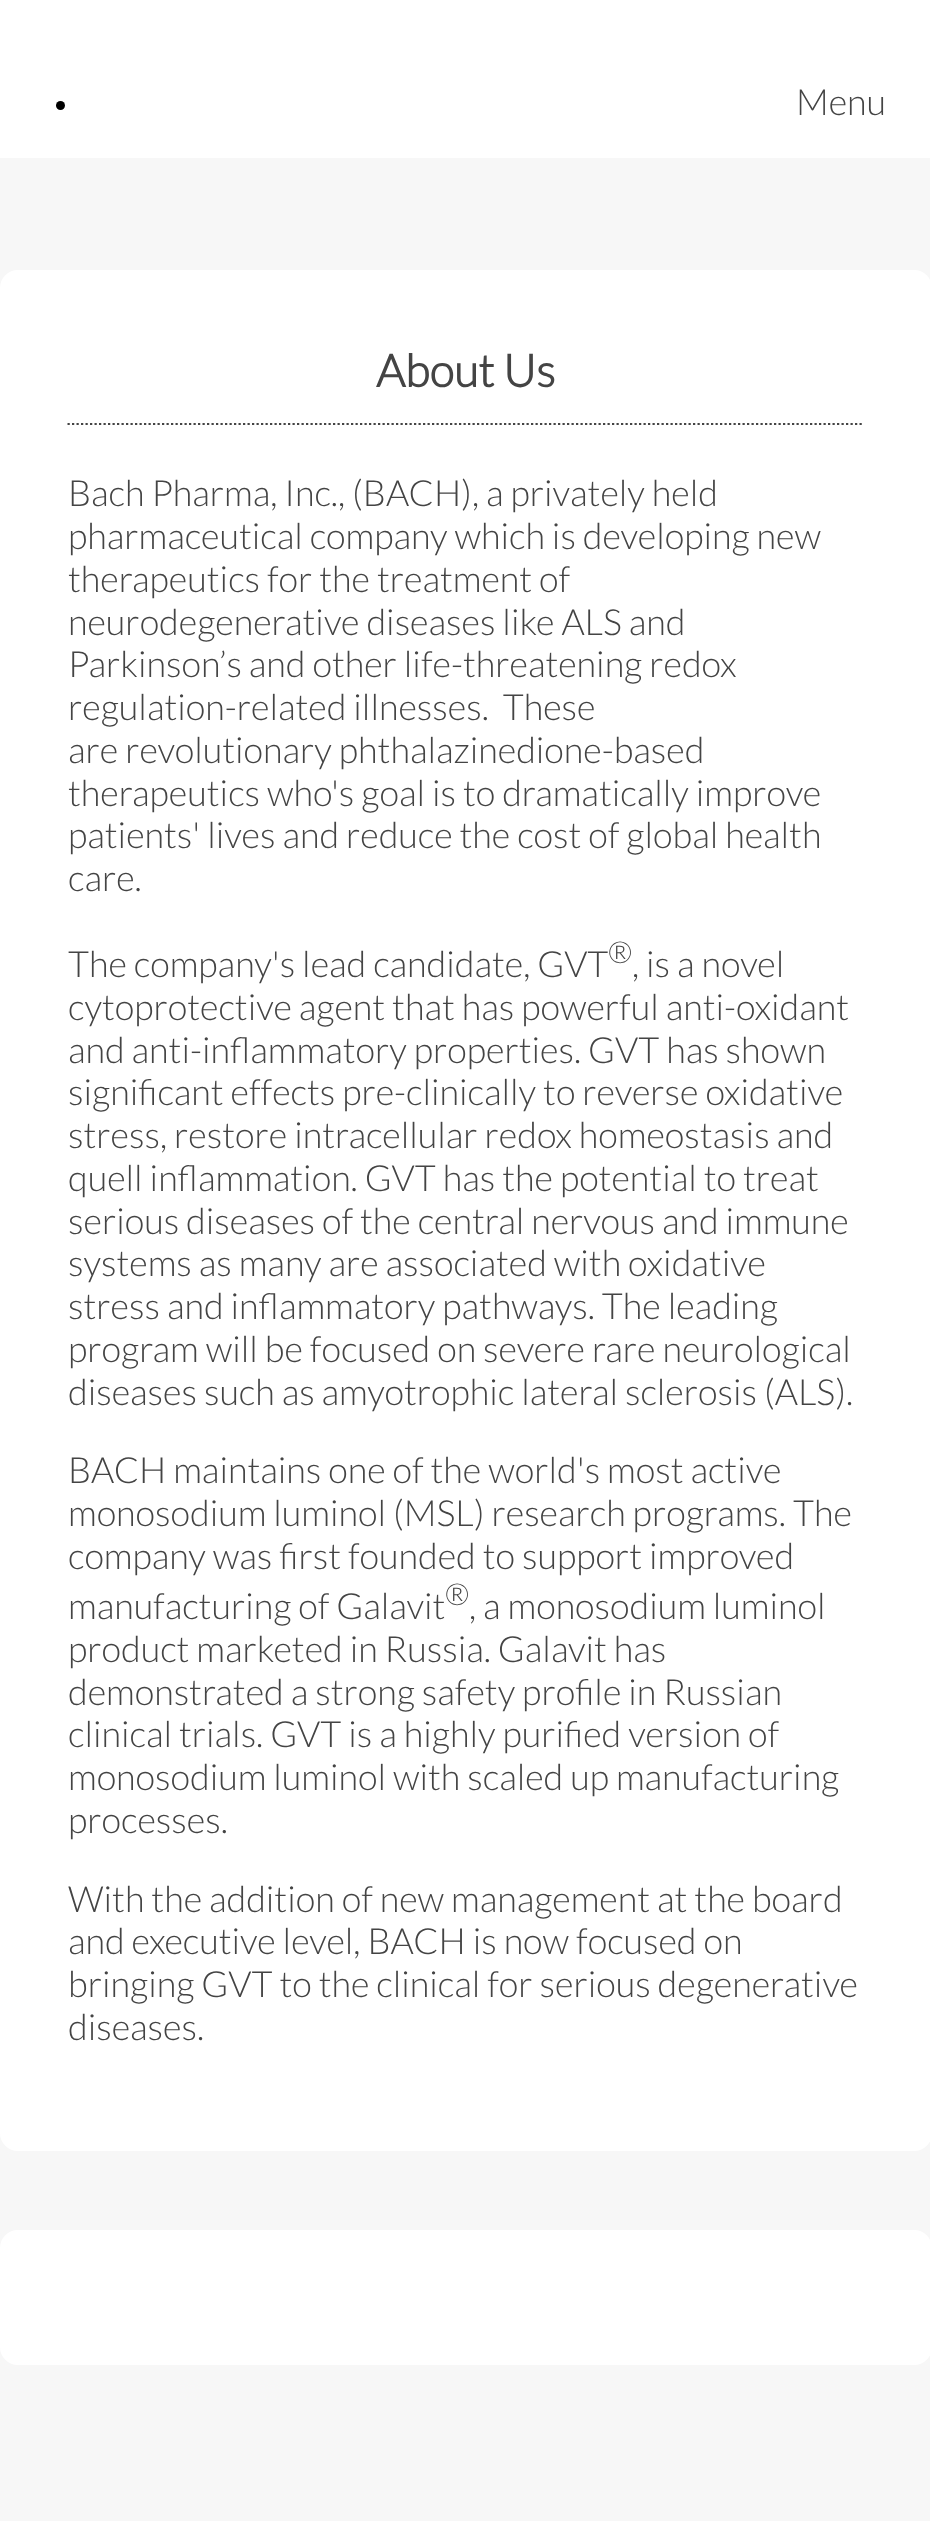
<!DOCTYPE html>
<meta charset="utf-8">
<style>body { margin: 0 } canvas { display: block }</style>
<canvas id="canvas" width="930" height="2521"></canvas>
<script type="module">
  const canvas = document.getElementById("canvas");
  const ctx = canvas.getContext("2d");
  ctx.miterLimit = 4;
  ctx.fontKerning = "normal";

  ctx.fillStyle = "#ffffff";
  ctx.fillRect(0, 0, 930, 2521);
  ctx.fillStyle = "#000000";
  ctx.beginPath();
  ctx.arc(60.5, 105.5, 4.5, 0, Math.PI * 2);
  ctx.fill();
  ctx.font = "300 36px Lato";
  ctx.fillStyle = "#444444";
  ctx.fillText("Menu", 796, 115);
  ctx.fillStyle = "#f7f7f7";
  ctx.fillRect(0, 158, 930, 2363);
  ctx.fillStyle = "#ffffff";
  ctx.beginPath();
  ctx.roundRect(0, 270, 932, 1881, 18);
  ctx.fill();
  ctx.beginPath();
  ctx.moveTo(67.5, 424);
  ctx.lineTo(864, 424);
  ctx.strokeStyle = "#444444";
  ctx.lineWidth = 2.2;
  ctx.setLineDash([2.25, 2.25]);
  ctx.stroke();
  ctx.font = "bold 45px Lato";
  ctx.fillStyle = "#444444";
  ctx.fillText("About Us", 376, 387);
  ctx.font = "300 36px Lato";
  ctx.fillText("Bach Pharma, Inc., (BACH), a privately held", 68, 506);
  ctx.fillText("pharmaceutical company which is developing new", 68, 549);
  ctx.fillText("therapeutics for the treatment of", 68, 592);
  ctx.fillText("neurodegenerative diseases like ALS and", 68, 635);
  ctx.fillText("Parkinson’s and other life-threatening redox", 68, 677);
  ctx.fillText("regulation-related illnesses.  These", 68, 720);
  ctx.fillText("are revolutionary phthalazinedione-based", 68, 763);
  ctx.fillText("therapeutics who's goal is to dramatically improve", 68, 806);
  ctx.fillText("patients' lives and reduce the cost of global health", 68, 848);
  ctx.fillText("care.", 68, 891);
  ctx.fillText("The company's lead candidate, GVT", 68, 977);
  ctx.font = "300 30px Lato";
  ctx.fillText("®", 608, 963);
  ctx.font = "300 36px Lato";
  ctx.fillText(", is a novel", 632, 977);
  ctx.fillText("cytoprotective agent that has powerful anti-oxidant", 68, 1020);
  ctx.fillText("and anti-inflammatory properties. GVT has shown", 68, 1063);
  ctx.fillText("significant effects pre-clinically to reverse oxidative", 68, 1105);
  ctx.fillText("stress, restore intracellular redox homeostasis and", 68, 1148);
  ctx.fillText("quell inflammation. GVT has the potential to treat", 68, 1191);
  ctx.fillText("serious diseases of the central nervous and immune", 68, 1234);
  ctx.fillText("systems as many are associated with oxidative", 68, 1276);
  ctx.fillText("stress and inflammatory pathways. The leading", 68, 1319);
  ctx.fillText("program will be focused on severe rare neurological", 68, 1362);
  ctx.fillText("diseases such as amyotrophic lateral sclerosis (ALS).", 68, 1405);
  ctx.fillText("BACH maintains one of the world's most active", 68, 1483);
  ctx.fillText("monosodium luminol (MSL) research programs. The", 68, 1526);
  ctx.fillText("company was first founded to support improved", 68, 1569);
  ctx.fillText("manufacturing of Galavit", 68, 1619);
  ctx.font = "300 30px Lato";
  ctx.fillText("®", 445, 1605);
  ctx.font = "300 36px Lato";
  ctx.fillText(", a monosodium luminol", 469, 1619);
  ctx.fillText("product marketed in Russia. Galavit has", 68, 1662);
  ctx.fillText("demonstrated a strong safety profile in Russian", 68, 1705);
  ctx.fillText("clinical trials. GVT is a highly purified version of", 68, 1747);
  ctx.fillText("monosodium luminol with scaled up manufacturing", 68, 1790);
  ctx.fillText("processes.", 68, 1833);
  ctx.fillText("With the addition of new management at the board", 68, 1912);
  ctx.fillText("and executive level, BACH is now focused on", 68, 1954);
  ctx.fillText("bringing GVT to the clinical for serious degenerative", 68, 1997);
  ctx.fillText("diseases.", 68, 2040);
  ctx.fillStyle = "#ffffff";
  ctx.beginPath();
  ctx.roundRect(0, 2230, 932, 135, 18);
  ctx.fill();
</script>
